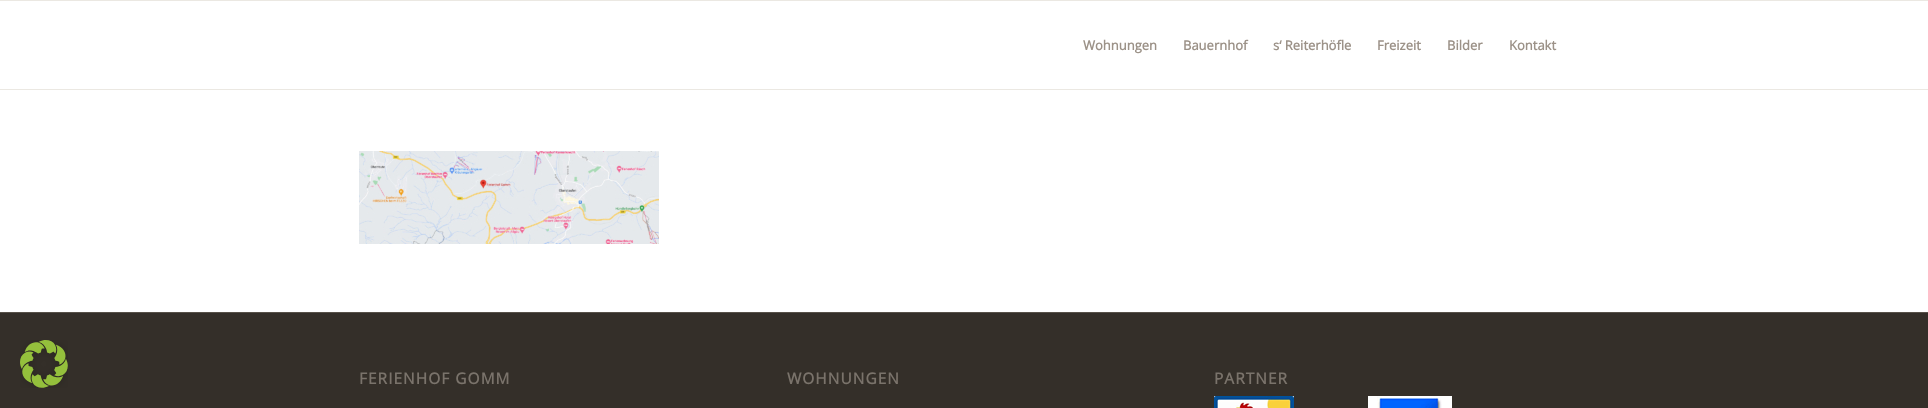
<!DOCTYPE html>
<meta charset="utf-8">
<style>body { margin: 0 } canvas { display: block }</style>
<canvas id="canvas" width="1928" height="408"></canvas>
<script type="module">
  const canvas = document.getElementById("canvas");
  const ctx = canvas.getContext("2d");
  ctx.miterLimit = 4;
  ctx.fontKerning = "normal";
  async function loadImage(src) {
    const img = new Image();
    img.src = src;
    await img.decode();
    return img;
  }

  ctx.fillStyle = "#ffffff";
  ctx.fillRect(0, 0, 1928, 408);
  ctx.fillStyle = "#342f29";
  ctx.fillRect(0, 313, 1928, 95);
  ctx.drawImage(await loadImage("img1.png"), 20, 340, 48, 48);
  ctx.fillStyle = "#ebe8e2";
  ctx.fillRect(0, 0, 1928, 1);
  ctx.fillRect(0, 89, 1928, 1);
  ctx.font = "bold 13px Open Sans";
  ctx.fillStyle = "#9c9288";
  ctx.fillText("Wohnungen", 1083, 50);
  ctx.fillText("Bauernhof", 1183, 50);
  ctx.fillText("s‘ Reiterhöfle", 1273, 50);
  ctx.fillText("Freizeit", 1377, 50);
  ctx.fillText("Bilder", 1447, 50);
  ctx.fillText("Kontakt", 1509, 50);
  ctx.drawImage(await loadImage("img2.png"), 359, 151, 300, 93);
  ctx.fillStyle = "#575149";
  ctx.fillRect(0, 312, 1928, 1);
  ctx.letterSpacing = "1px";
  ctx.font = "bold 15.5px Open Sans";
  ctx.fillStyle = "#7a736b";
  ctx.fillText("FERIENHOF GOMM", 359, 384);
  ctx.fillText("WOHNUNGEN", 787, 384);
  ctx.fillText("PARTNER", 1214, 384);
  ctx.drawImage(await loadImage("img3.png"), 1214, 396, 80, 12);
  ctx.drawImage(await loadImage("img4.png"), 1368, 396, 84, 12);
</script>
